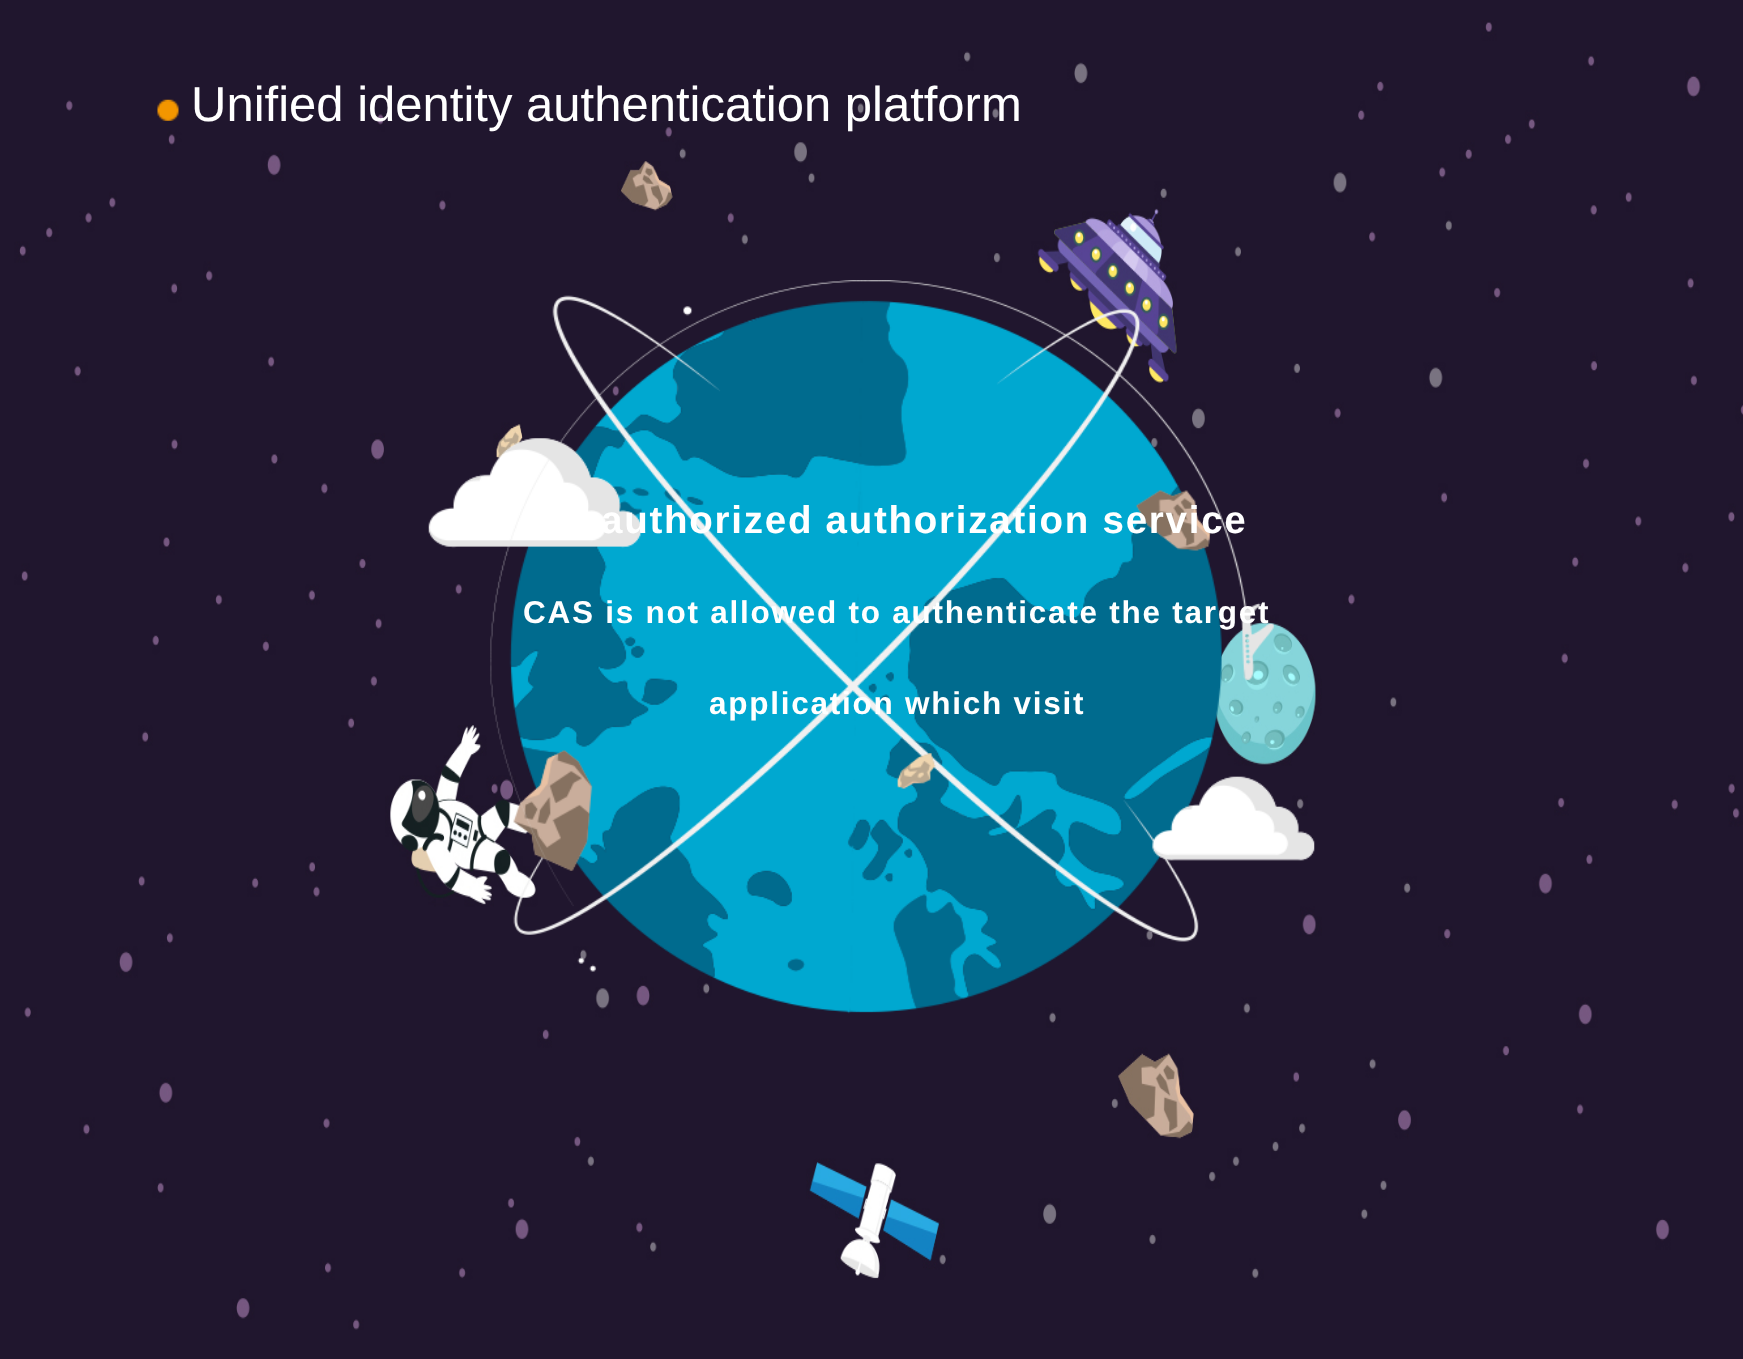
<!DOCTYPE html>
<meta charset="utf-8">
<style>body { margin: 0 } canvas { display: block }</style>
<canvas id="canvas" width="1743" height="1359"></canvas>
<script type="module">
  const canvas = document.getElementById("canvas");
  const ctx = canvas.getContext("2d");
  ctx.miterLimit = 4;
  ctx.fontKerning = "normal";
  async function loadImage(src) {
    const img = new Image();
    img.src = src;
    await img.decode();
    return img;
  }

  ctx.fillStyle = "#ffffff";
  ctx.fillRect(0, 0, 1743, 1359);
  ctx.drawImage(await loadImage("img1.png"), 0, 0, 1743, 1359);
  ctx.drawImage(await loadImage("img2.png"), 157, 99, 22, 22);
  ctx.font = "49px Liberation Sans";
  ctx.fillText("Unified identity authentication platform", 191, 121);
  ctx.drawImage(await loadImage("img3.png"), 428, 280, 887, 734);
  ctx.letterSpacing = "1.75px";
  ctx.font = "bold 38.5px Liberation Sans";
  ctx.fillText("authorized authorization service", 601, 533);
  ctx.font = "bold 31.5px Liberation Sans";
  ctx.fillText("CAS is not allowed to authenticate the target", 523, 623);
  ctx.fillText("application which visit", 709, 714);
</script>
